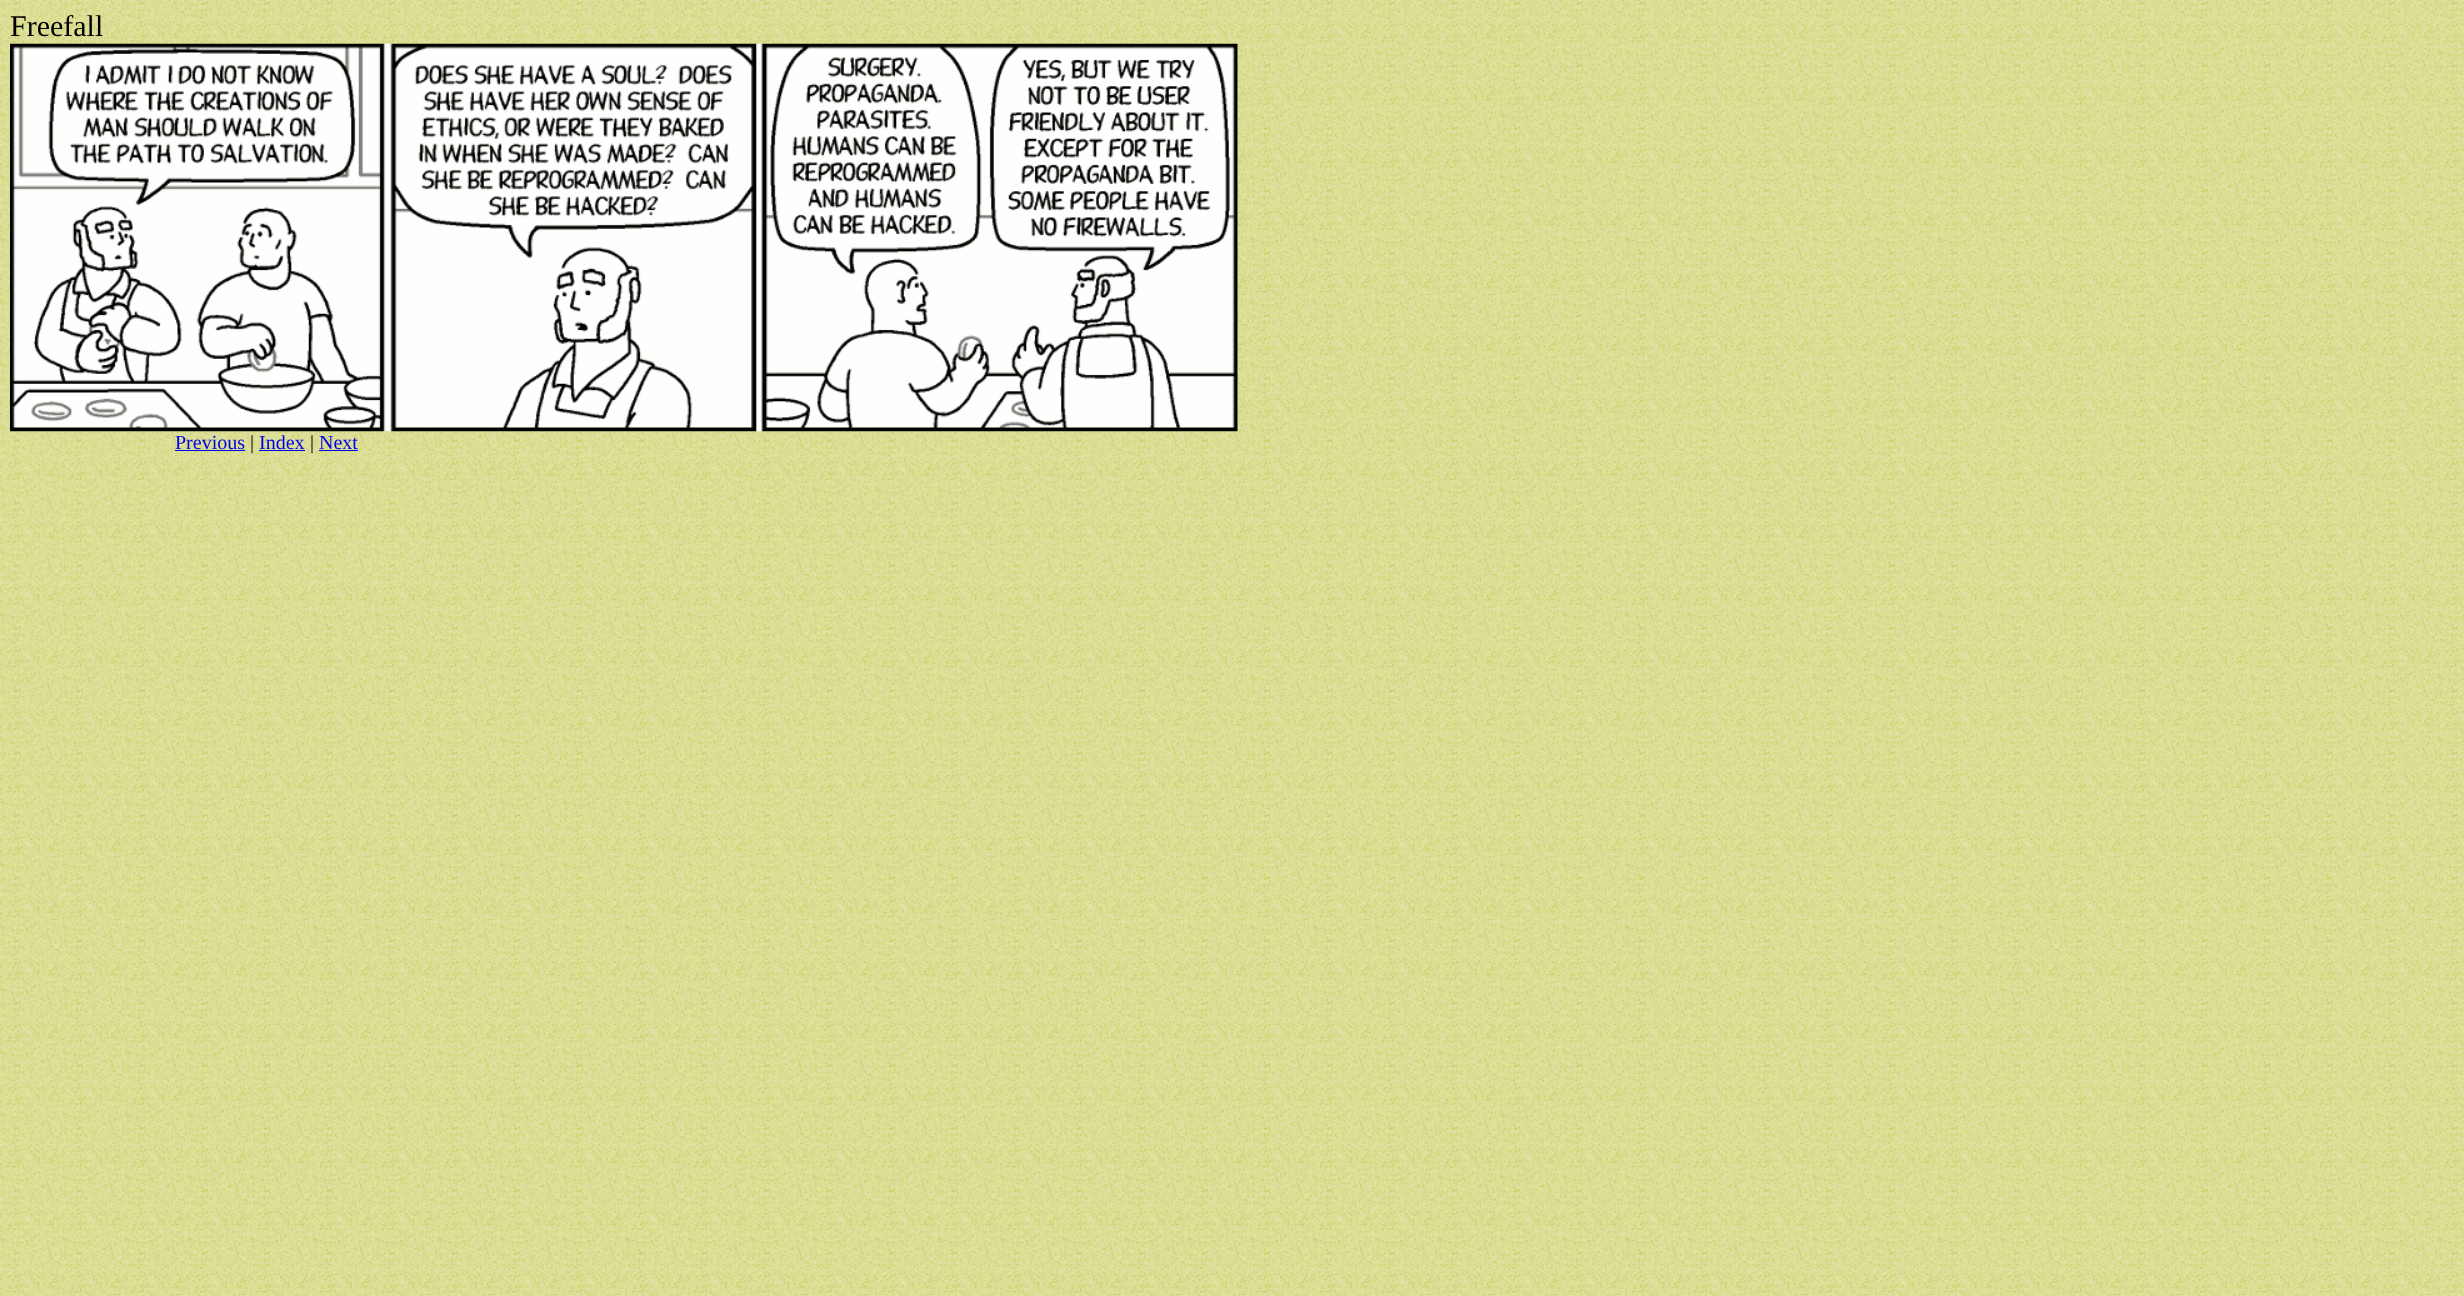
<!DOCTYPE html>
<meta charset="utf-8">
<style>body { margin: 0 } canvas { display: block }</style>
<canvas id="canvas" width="2464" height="1296"></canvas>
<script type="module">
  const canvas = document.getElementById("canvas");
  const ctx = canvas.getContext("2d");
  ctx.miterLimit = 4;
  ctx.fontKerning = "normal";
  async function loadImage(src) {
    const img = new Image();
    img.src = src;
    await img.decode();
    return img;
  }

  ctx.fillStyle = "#ffffff";
  ctx.fillRect(0, 0, 2464, 1296);
  ctx.drawImage(await loadImage("img1.png"), 0, 0, 2464, 1296);
  ctx.font = "30px Liberation Serif";
  ctx.fillStyle = "#000000";
  ctx.fillText("Freefall", 10, 36);
  ctx.drawImage(await loadImage("img2.png"), 10, 43, 1228, 389);
  ctx.font = "20px Liberation Serif";
  ctx.fillStyle = "#0000ee";
  ctx.fillText("Previous", 175, 449);
  ctx.fillRect(175, 450, 70, 1);
  ctx.fillStyle = "#000000";
  ctx.fillText("|", 250, 449);
  ctx.fillStyle = "#0000ee";
  ctx.fillText("Index", 259, 449);
  ctx.fillRect(259, 450, 46, 1);
  ctx.fillStyle = "#000000";
  ctx.fillText("|", 310, 449);
  ctx.fillStyle = "#0000ee";
  ctx.fillText("Next", 319, 449);
  ctx.fillRect(319, 450, 39, 1);
</script>
